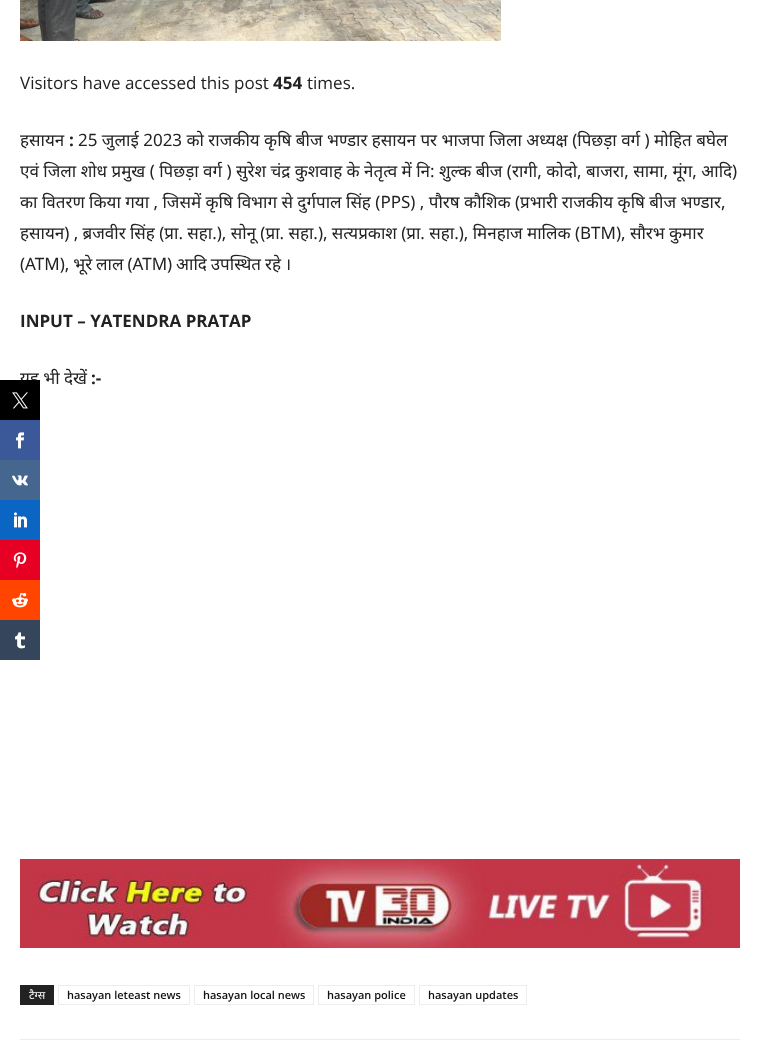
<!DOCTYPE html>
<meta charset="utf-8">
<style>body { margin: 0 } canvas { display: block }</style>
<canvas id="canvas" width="760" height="1047"></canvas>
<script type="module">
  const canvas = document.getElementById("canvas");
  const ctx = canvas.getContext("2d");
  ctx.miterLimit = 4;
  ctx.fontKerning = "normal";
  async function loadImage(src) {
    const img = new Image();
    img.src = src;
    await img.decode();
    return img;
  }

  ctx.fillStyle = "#ffffff";
  ctx.fillRect(0, 0, 760, 1047);
  ctx.drawImage(await loadImage("img1.png"), 20, 0, 481, 41);
  ctx.font = "17px Open Sans";
  ctx.fillStyle = "#222222";
  ctx.fillText("Visitors have accessed this post", 20, 89);
  ctx.font = "bold 17px Open Sans";
  ctx.fillText("454", 273, 89);
  ctx.font = "17px Open Sans";
  ctx.fillText("times.", 307, 89);
  ctx.font = "17px Noto Sans";
  ctx.fillText("हसायन", 20, 146);
  ctx.font = "bold 17px Open Sans";
  ctx.fillText(":", 69, 146);
  ctx.font = "17px Noto Sans";
  ctx.fillText("25 जुलाई 2023 को राजकीय कृषि बीज भण्डार हसायन पर भाजपा जिला अध्यक्ष (पिछड़ा वर्ग ) मोहित बघेल", 78, 146);
  ctx.fillText("एवं जिला शोध प्रमुख ( पिछड़ा वर्ग ) सुरेश चंद्र कुशवाह के नेतृत्व में नि: शुल्क बीज (रागी, कोदो, बाजरा, सामा, मूंग, आदि)", 20, 177);
  ctx.fillText("का वितरण किया गया , जिसमें कृषि विभाग से दुर्गपाल सिंह (PPS) , पौरष कौशिक (प्रभारी राजकीय कृषि बीज भण्डार,", 20, 208);
  ctx.wordSpacing = "-0.1px";
  ctx.fillText("हसायन) , ब्रजवीर सिंह (प्रा. सहा.), सोनू (प्रा. सहा.), सत्यप्रकाश (प्रा. सहा.), मिनहाज मालिक (BTM), सौरभ कुमार", 20, 239);
  ctx.wordSpacing = "-0.5px";
  ctx.fillText("(ATM), भूरे लाल (ATM) आदि उपस्थित रहे ।", 20, 270);
  ctx.wordSpacing = "0px";
  ctx.font = "bold 17px Open Sans";
  ctx.fillText("INPUT – YATENDRA PRATAP", 20, 327);
  ctx.font = "17px Noto Sans";
  ctx.fillText("यह भी देखें", 20, 384);
  ctx.font = "bold 17px Open Sans";
  ctx.fillText(":-", 91, 384);
  ctx.drawImage(await loadImage("img2.png"), 20, 859, 720, 89);
  ctx.fillRect(20, 985, 34, 20);
  ctx.font = "11px Noto Sans";
  ctx.fillStyle = "#ffffff";
  ctx.fillText("टैग्स", 29, 999);
  ctx.strokeStyle = "#ededed";
  ctx.strokeRect(58.5, 985.5, 131, 19);
  ctx.font = "600 11px Open Sans";
  ctx.fillStyle = "#111111";
  ctx.fillText("hasayan leteast news", 67, 999);
  ctx.strokeRect(194.5, 985.5, 119, 19);
  ctx.fillText("hasayan local news", 203, 999);
  ctx.strokeRect(318.5, 985.5, 96, 19);
  ctx.fillText("hasayan police", 327, 999);
  ctx.strokeRect(419.5, 985.5, 107, 19);
  ctx.fillText("hasayan updates", 428, 999);
  ctx.fillStyle = "#ededed";
  ctx.fillRect(20, 1039, 720, 1);
  ctx.fillStyle = "#000000";
  ctx.fillRect(0, 380, 40, 40);
  ctx.drawImage(await loadImage("img3.png"), 12, 392, 16, 17);
  ctx.fillStyle = "#3b5998";
  ctx.fillRect(0, 420, 40, 40);
  ctx.drawImage(await loadImage("img4.png"), 16, 432, 8, 17);
  ctx.fillStyle = "#45668e";
  ctx.fillRect(0, 460, 40, 40);
  ctx.drawImage(await loadImage("img5.png"), 12, 475, 16, 11);
  ctx.fillStyle = "#0a66c2";
  ctx.fillRect(0, 500, 40, 40);
  ctx.drawImage(await loadImage("img6.png"), 14, 512, 13, 16);
  ctx.fillStyle = "#e60023";
  ctx.fillRect(0, 540, 40, 40);
  ctx.drawImage(await loadImage("img7.png"), 13, 552, 14, 17);
  ctx.fillStyle = "#ff4500";
  ctx.fillRect(0, 580, 40, 40);
  ctx.drawImage(await loadImage("img8.png"), 12, 592, 16, 16);
  ctx.fillStyle = "#35465c";
  ctx.fillRect(0, 620, 40, 40);
  ctx.drawImage(await loadImage("img9.png"), 15, 632, 10, 17);
</script>
